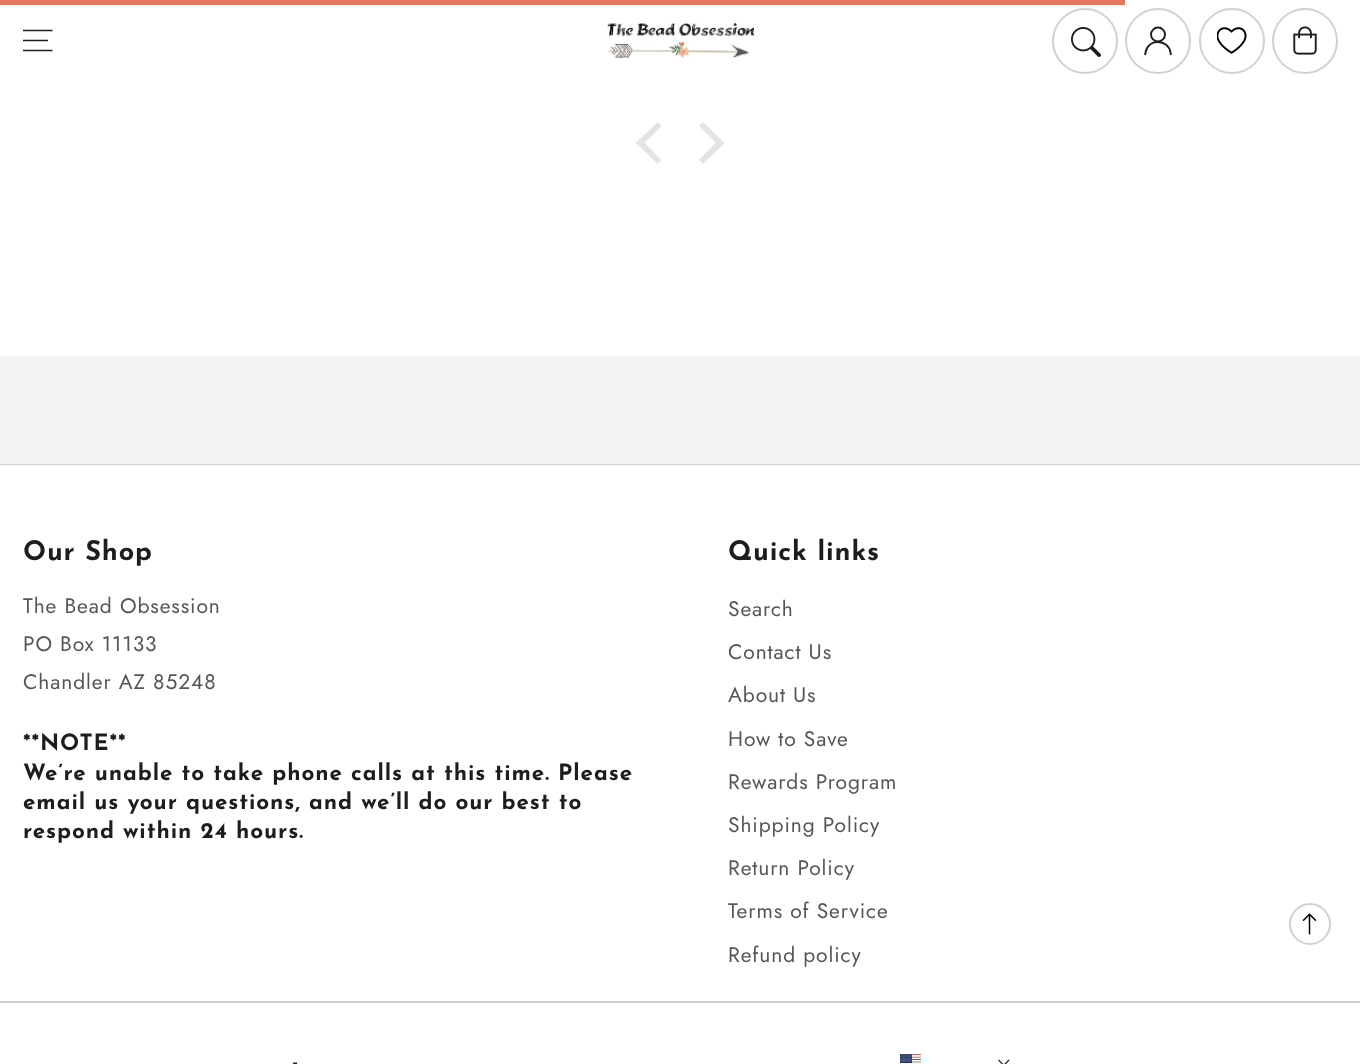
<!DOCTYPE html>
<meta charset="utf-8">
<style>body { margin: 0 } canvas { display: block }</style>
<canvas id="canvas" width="1360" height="1064"></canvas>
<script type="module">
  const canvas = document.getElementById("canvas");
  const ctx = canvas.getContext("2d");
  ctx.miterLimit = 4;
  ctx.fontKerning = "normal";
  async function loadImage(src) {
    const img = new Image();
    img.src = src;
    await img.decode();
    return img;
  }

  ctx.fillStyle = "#ffffff";
  ctx.fillRect(0, 0, 1360, 1064);
  ctx.fillStyle = "#e2785e";
  ctx.fillRect(0, 0, 1125, 5);
  ctx.save();
  ctx.beginPath();
  ctx.rect(23, 26, 30, 30);
  ctx.clip();
  ctx.beginPath();
  ctx.moveTo(22.5, 50.5);
  ctx.lineTo(52.5, 50.5);
  ctx.moveTo(22.5, 40.5);
  ctx.lineTo(48, 40.5);
  ctx.moveTo(22.5, 30.5);
  ctx.lineTo(52.5, 30.5);
  ctx.strokeStyle = "#1d1d1d";
  ctx.lineWidth = 1.4;
  ctx.stroke();
  ctx.restore();
  ctx.drawImage(await loadImage("img1.png"), 607, 22, 148, 37);
  ctx.beginPath();
  ctx.arc(1085, 41, 32, 0, Math.PI * 2);
  ctx.strokeStyle = "#d1d1d1";
  ctx.lineWidth = 2;
  ctx.stroke();
  ctx.drawImage(await loadImage("img2.png"), 1071, 27, 30, 30);
  ctx.beginPath();
  ctx.arc(1158, 41, 32, 0, Math.PI * 2);
  ctx.stroke();
  ctx.beginPath();
  ctx.arc(1158, 34.5, 7, 0, Math.PI * 2);
  ctx.strokeStyle = "#1d1d1d";
  ctx.lineWidth = 1.9;
  ctx.stroke();
  ctx.beginPath();
  ctx.moveTo(1145, 55);
  ctx.lineTo(1145.5, 52.5);
  ctx.bezierCurveTo(1146.5, 46, 1152, 41.5, 1158, 42);
  ctx.bezierCurveTo(1164, 42, 1169.5, 46, 1170.5, 52.5);
  ctx.lineTo(1171, 55);
  ctx.stroke();
  ctx.beginPath();
  ctx.arc(1232, 41, 32, 0, Math.PI * 2);
  ctx.strokeStyle = "#d1d1d1";
  ctx.lineWidth = 2;
  ctx.stroke();
  ctx.drawImage(await loadImage("img3.png"), 1217, 27, 30, 27);
  ctx.beginPath();
  ctx.arc(1305, 41, 32, 0, Math.PI * 2);
  ctx.stroke();
  ctx.drawImage(await loadImage("img4.png"), 1293, 26, 24, 29);
  ctx.fillStyle = "#e4e4e4";
  ctx.beginPath();
  ctx.moveTo(636, 143);
  ctx.lineTo(657.5, 122);
  ctx.lineTo(661.5, 126);
  ctx.lineTo(640.5, 147);
  ctx.closePath();
  ctx.fill();
  ctx.beginPath();
  ctx.moveTo(636, 143);
  ctx.lineTo(640.5, 138.5);
  ctx.lineTo(661.5, 160);
  ctx.lineTo(657.5, 164);
  ctx.closePath();
  ctx.fill();
  ctx.beginPath();
  ctx.moveTo(699, 126);
  ctx.lineTo(703, 122);
  ctx.lineTo(724.5, 143);
  ctx.lineTo(720, 147);
  ctx.closePath();
  ctx.fill();
  ctx.beginPath();
  ctx.moveTo(699, 160);
  ctx.lineTo(720, 138.5);
  ctx.lineTo(724.5, 143);
  ctx.lineTo(703, 164);
  ctx.closePath();
  ctx.fill();
  ctx.fillStyle = "#f2f2f2";
  ctx.fillRect(0, 356, 1360, 108);
  ctx.fillStyle = "#d1d1d1";
  ctx.fillRect(0, 464, 1360, 1);
  ctx.letterSpacing = "0.9px";
  ctx.font = "bold 27px Josefin Sans";
  ctx.fillStyle = "#1d1d1d";
  ctx.fillText("Our Shop", 23, 560);
  ctx.font = "21px Jost";
  ctx.fillStyle = "#565656";
  ctx.fillText("The Bead Obsession", 23, 613);
  ctx.fillText("PO Box 11133", 23, 651);
  ctx.fillText("Chandler AZ 85248", 23, 689);
  ctx.font = "bold 22.5px Josefin Sans";
  ctx.fillStyle = "#1d1d1d";
  ctx.fillText("**NOTE**", 23, 750);
  ctx.fillText("We’re unable to take phone calls at this time. Please", 23, 780);
  ctx.fillText("email us your questions, and we’ll do our best to", 23, 809);
  ctx.fillText("respond within 24 hours.", 23, 838);
  ctx.font = "bold 27px Josefin Sans";
  ctx.fillText("Quick links", 728, 560);
  ctx.font = "21px Jost";
  ctx.fillStyle = "#565656";
  ctx.fillText("Search", 728, 616);
  ctx.fillText("Contact Us", 728, 659);
  ctx.fillText("About Us", 728, 702);
  ctx.fillText("How to Save", 728, 746);
  ctx.fillText("Rewards Program", 728, 789);
  ctx.fillText("Shipping Policy", 728, 832);
  ctx.fillText("Return Policy", 728, 875);
  ctx.fillText("Terms of Service", 728, 918);
  ctx.fillText("Refund policy", 728, 962);
  ctx.fillStyle = "#d1d1d1";
  ctx.fillRect(0, 1001, 1360, 2);
  ctx.font = "20px Jost";
  ctx.fillStyle = "#1d1d1d";
  ctx.fillText("-", 293, 1068);
  ctx.drawImage(await loadImage("img5.png"), 900, 1054, 21, 10);
  ctx.drawImage(await loadImage("img6.png"), 998, 1059, 12, 5);
  ctx.beginPath();
  ctx.arc(1310, 924, 20, 0, Math.PI * 2);
  ctx.stroke();
  ctx.drawImage(await loadImage("img7.png"), 1302, 913, 15, 22);
</script>
